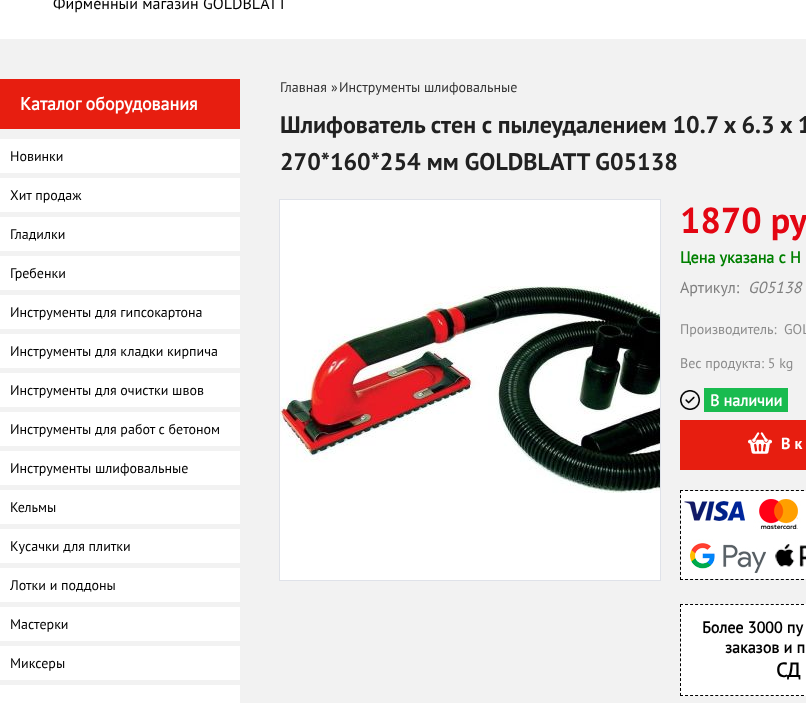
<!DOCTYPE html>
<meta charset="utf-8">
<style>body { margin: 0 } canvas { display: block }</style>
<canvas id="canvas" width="806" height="703"></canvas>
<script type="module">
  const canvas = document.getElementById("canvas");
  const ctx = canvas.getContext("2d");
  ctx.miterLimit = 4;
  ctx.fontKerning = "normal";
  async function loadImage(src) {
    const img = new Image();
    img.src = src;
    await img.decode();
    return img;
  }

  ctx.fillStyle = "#f2f2f2";
  ctx.fillRect(0, 0, 806, 703);
  ctx.fillStyle = "#ffffff";
  ctx.fillRect(0, 0, 806, 39);
  ctx.font = "16px PT Sans";
  ctx.fillStyle = "#000000";
  ctx.fillText("Фирменный магазин GOLDBLATT", 53, 9);
  ctx.fillStyle = "#e71e10";
  ctx.fillRect(0, 79, 240, 50);
  ctx.font = "bold 18px 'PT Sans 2'";
  ctx.fillStyle = "#ffffff";
  ctx.fillText("Каталог оборудования", 20, 110);
  ctx.fillRect(0, 139, 240, 34);
  ctx.font = "14px PT Sans";
  ctx.fillStyle = "#000000";
  ctx.fillText("Новинки", 10, 161);
  ctx.fillStyle = "#ffffff";
  ctx.fillRect(0, 178, 240, 34);
  ctx.fillStyle = "#000000";
  ctx.fillText("Хит продаж", 10, 200);
  ctx.fillStyle = "#ffffff";
  ctx.fillRect(0, 217, 240, 34);
  ctx.fillStyle = "#000000";
  ctx.fillText("Гладилки", 10, 239);
  ctx.fillStyle = "#ffffff";
  ctx.fillRect(0, 256, 240, 34);
  ctx.fillStyle = "#000000";
  ctx.fillText("Гребенки", 10, 278);
  ctx.fillStyle = "#ffffff";
  ctx.fillRect(0, 295, 240, 34);
  ctx.fillStyle = "#000000";
  ctx.fillText("Инструменты для гипсокартона", 10, 317);
  ctx.fillStyle = "#ffffff";
  ctx.fillRect(0, 334, 240, 34);
  ctx.fillStyle = "#000000";
  ctx.fillText("Инструменты для кладки кирпича", 10, 356);
  ctx.fillStyle = "#ffffff";
  ctx.fillRect(0, 373, 240, 34);
  ctx.fillStyle = "#000000";
  ctx.fillText("Инструменты для очистки швов", 10, 395);
  ctx.fillStyle = "#ffffff";
  ctx.fillRect(0, 412, 240, 34);
  ctx.fillStyle = "#000000";
  ctx.fillText("Инструменты для работ с бетоном", 10, 434);
  ctx.fillStyle = "#ffffff";
  ctx.fillRect(0, 451, 240, 34);
  ctx.fillStyle = "#000000";
  ctx.fillText("Инструменты шлифовальные", 10, 473);
  ctx.fillStyle = "#ffffff";
  ctx.fillRect(0, 490, 240, 34);
  ctx.fillStyle = "#000000";
  ctx.fillText("Кельмы", 10, 512);
  ctx.fillStyle = "#ffffff";
  ctx.fillRect(0, 529, 240, 34);
  ctx.fillStyle = "#000000";
  ctx.fillText("Кусачки для плитки", 10, 551);
  ctx.fillStyle = "#ffffff";
  ctx.fillRect(0, 568, 240, 34);
  ctx.fillStyle = "#000000";
  ctx.fillText("Лотки и поддоны", 10, 590);
  ctx.fillStyle = "#ffffff";
  ctx.fillRect(0, 607, 240, 34);
  ctx.fillStyle = "#000000";
  ctx.fillText("Мастерки", 10, 629);
  ctx.fillStyle = "#ffffff";
  ctx.fillRect(0, 646, 240, 34);
  ctx.fillStyle = "#000000";
  ctx.fillText("Миксеры", 10, 668);
  ctx.fillStyle = "#ffffff";
  ctx.fillRect(0, 685, 240, 18);
  ctx.fillStyle = "#333333";
  ctx.fillText("Главная", 280, 92);
  ctx.fillText("»", 331, 92);
  ctx.fillText("Инструменты шлифовальные", 339, 92);
  ctx.wordSpacing = "-0.25px";
  ctx.font = "bold 24px PT Sans";
  ctx.fillStyle = "#212121";
  ctx.fillText("Шлифователь стен с пылеудалением 10.7 x 6.3 x 1", 280, 133);
  ctx.wordSpacing = "0px";
  ctx.fillText("270*160*254 мм GOLDBLATT G05138", 280, 170);
  ctx.strokeStyle = "#dfe2e9";
  ctx.strokeRect(279.5, 199.5, 381, 381);
  ctx.fillStyle = "#ffffff";
  ctx.fillRect(280, 200, 380, 380);
  ctx.drawImage(await loadImage("img1.png"), 280, 286, 380, 207);
  ctx.font = "bold 36px PT Sans";
  ctx.fillStyle = "#e30613";
  ctx.fillText("1870 ру", 680, 233);
  ctx.font = "bold 16px 'PT Sans 2'";
  ctx.fillStyle = "#008000";
  ctx.fillText("Цена указана с Н", 680, 263);
  ctx.font = "16px PT Sans";
  ctx.fillStyle = "#808080";
  ctx.fillText("Артикул:", 680, 293);
  ctx.font = "italic 16px PT Sans";
  ctx.fillText("G05138", 748, 293);
  ctx.font = "14px PT Sans";
  ctx.fillStyle = "#8b8b8b";
  ctx.fillText("Производитель:", 680, 334);
  ctx.fillText("GOL", 784, 334);
  ctx.fillText("Вес продукта: 5 kg", 680, 368);
  ctx.drawImage(await loadImage("img2.png"), 680, 390, 20, 20);
  ctx.fillStyle = "#19bb4f";
  ctx.fillRect(704, 388, 84, 24);
  ctx.font = "bold 16px 'PT Sans 2'";
  ctx.fillStyle = "#ffffff";
  ctx.fillText("В наличии", 710, 406);
  ctx.fillStyle = "#e71e10";
  ctx.fillRect(680, 420, 126, 50);
  ctx.drawImage(await loadImage("img3.png"), 748, 432, 24, 22);
  ctx.font = "bold 16px PT Sans";
  ctx.fillStyle = "#ffffff";
  ctx.fillText("В к", 781, 449);
  ctx.fillStyle = "#edeeef";
  ctx.fillRect(680, 490, 126, 90);
  ctx.beginPath();
  ctx.moveTo(680, 490.5);
  ctx.lineTo(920, 490.5);
  ctx.strokeStyle = "#000000";
  ctx.setLineDash([3, 2.04]);
  ctx.stroke();
  ctx.beginPath();
  ctx.moveTo(680, 579.5);
  ctx.lineTo(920, 579.5);
  ctx.stroke();
  ctx.beginPath();
  ctx.moveTo(680.5, 490);
  ctx.lineTo(680.5, 580);
  ctx.setLineDash([3, 2.12]);
  ctx.stroke();
  ctx.drawImage(await loadImage("img4.png"), 681, 491, 125, 88);
  ctx.fillStyle = "#ffffff";
  ctx.fillRect(680, 604, 126, 92);
  ctx.beginPath();
  ctx.moveTo(680, 604.5);
  ctx.lineTo(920, 604.5);
  ctx.setLineDash([3, 2.04]);
  ctx.stroke();
  ctx.beginPath();
  ctx.moveTo(680, 695.5);
  ctx.lineTo(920, 695.5);
  ctx.stroke();
  ctx.beginPath();
  ctx.moveTo(680.5, 604);
  ctx.lineTo(680.5, 696);
  ctx.setLineDash([3, 1.94]);
  ctx.stroke();
  ctx.font = "bold 16px 'PT Sans 2'";
  ctx.fillStyle = "#000000";
  ctx.fillText("Более 3000 пу", 702, 633);
  ctx.fillText("заказов и п", 725, 653);
  ctx.font = "bold 20px 'PT Sans 2'";
  ctx.fillText("СД", 776, 677);
</script>
